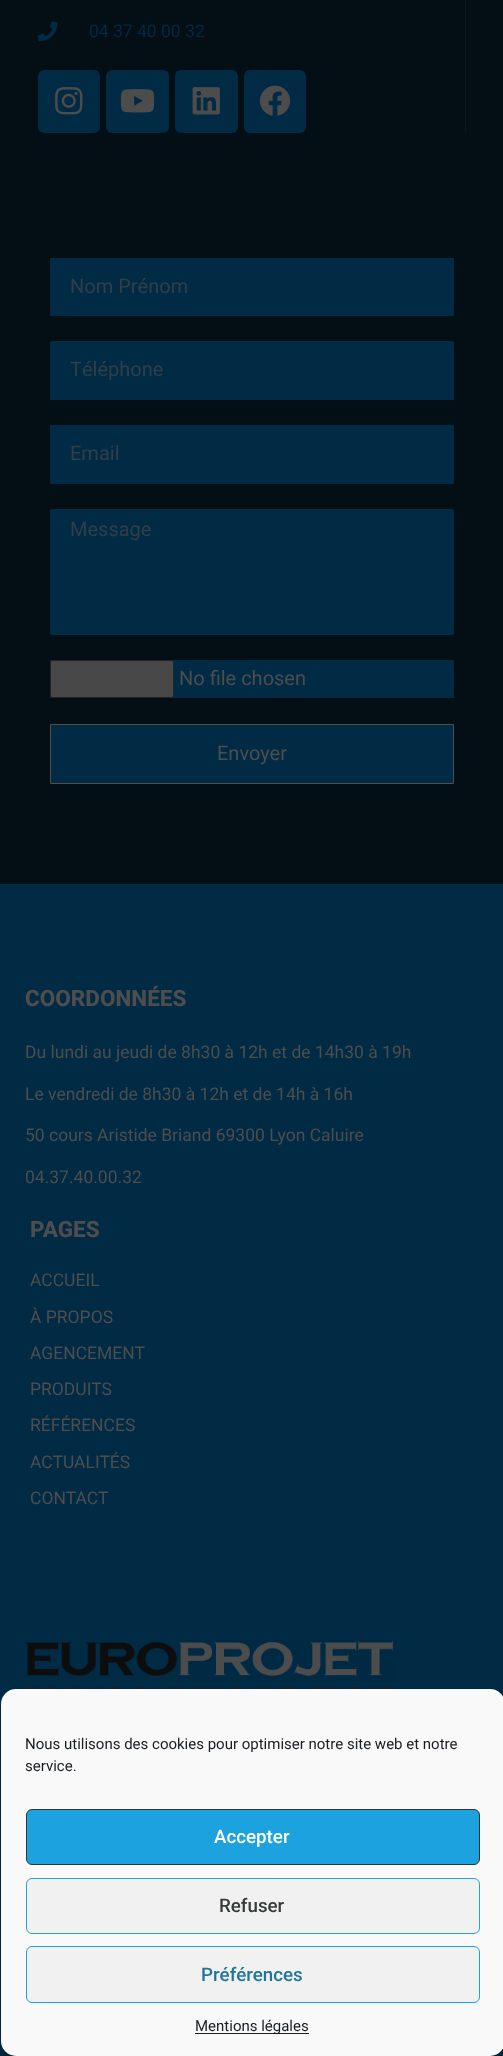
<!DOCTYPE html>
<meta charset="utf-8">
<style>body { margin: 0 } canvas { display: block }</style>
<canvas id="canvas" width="503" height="2056"></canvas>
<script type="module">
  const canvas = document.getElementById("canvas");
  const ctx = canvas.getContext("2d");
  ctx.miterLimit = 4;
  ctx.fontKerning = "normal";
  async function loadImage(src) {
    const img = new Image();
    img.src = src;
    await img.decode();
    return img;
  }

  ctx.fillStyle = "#030e15";
  ctx.fillRect(0, 0, 503, 2056);
  ctx.fillStyle = "#0c161c";
  ctx.fillRect(465, 0, 1, 133);
  ctx.drawImage(await loadImage("img1.png"), 37, 21, 21, 21);
  ctx.font = "17.5px Roboto";
  ctx.fillStyle = "#012a44";
  ctx.fillText("04 37 40 00 32", 89, 37);
  ctx.beginPath();
  ctx.roundRect(38, 70, 62, 63, 6);
  ctx.fill();
  ctx.drawImage(await loadImage("img2.png"), 55, 87, 28, 28);
  ctx.beginPath();
  ctx.roundRect(106, 70, 63, 63, 6);
  ctx.fill();
  ctx.drawImage(await loadImage("img3.png"), 120, 89, 35, 24);
  ctx.beginPath();
  ctx.roundRect(175, 70, 63, 63, 6);
  ctx.fill();
  ctx.drawImage(await loadImage("img4.png"), 192, 87, 28, 28);
  ctx.beginPath();
  ctx.roundRect(244, 70, 62, 63, 6);
  ctx.fill();
  ctx.drawImage(await loadImage("img5.png"), 259, 85, 32, 31);
  ctx.fillRect(50, 258, 404, 58);
  ctx.font = "20px Roboto";
  ctx.fillStyle = "#2f3f49";
  ctx.fillText("Nom Prénom", 70, 293);
  ctx.fillStyle = "#012a44";
  ctx.fillRect(50, 341, 404, 59);
  ctx.fillStyle = "#2f3f49";
  ctx.fillText("Téléphone", 70, 376);
  ctx.fillStyle = "#012a44";
  ctx.fillRect(50, 425, 404, 59);
  ctx.fillStyle = "#2f3f49";
  ctx.fillText("Email", 70, 460);
  ctx.fillStyle = "#012a44";
  ctx.fillRect(50, 509, 404, 126);
  ctx.fillStyle = "#2f3f49";
  ctx.fillText("Message", 70, 536);
  ctx.fillStyle = "#012a44";
  ctx.fillRect(50, 660, 404, 38);
  ctx.fillStyle = "#484848";
  ctx.beginPath();
  ctx.roundRect(50.5, 660.5, 123, 37, 2);
  ctx.fill();
  ctx.strokeStyle = "#232323";
  ctx.stroke();
  ctx.fillStyle = "#4d4d4d";
  ctx.fillText("No file chosen", 179, 685);
  ctx.fillStyle = "#012a44";
  ctx.beginPath();
  ctx.rect(50.5, 724.5, 403, 59);
  ctx.fill();
  ctx.strokeStyle = "#4d4d4d";
  ctx.stroke();
  ctx.fillStyle = "#4d4d4d";
  ctx.fillText("Envoyer", 217, 760);
  ctx.fillStyle = "#012a44";
  ctx.fillRect(0, 884, 503, 1172);
  ctx.font = "800 22.5px Roboto";
  ctx.fillStyle = "#4d4d4d";
  ctx.fillText("COORDONNÉES", 25, 1006);
  ctx.font = "17.5px Roboto";
  ctx.fillText("Du lundi au jeudi de 8h30 à 12h et de 14h30 à 19h", 25, 1058);
  ctx.fillText("Le vendredi de 8h30 à 12h et de 14h à 16h", 25, 1100);
  ctx.fillText("50 cours Aristide Briand 69300 Lyon Caluire", 25, 1141);
  ctx.fillText("04.37.40.00.32", 25, 1183);
  ctx.font = "800 22.5px Roboto";
  ctx.fillText("PAGES", 30, 1237);
  ctx.font = "17.5px Roboto";
  ctx.fillText("ACCUEIL", 30, 1286);
  ctx.fillText("À PROPOS", 30, 1323);
  ctx.fillText("AGENCEMENT", 30, 1359);
  ctx.fillText("PRODUITS", 30, 1395);
  ctx.fillText("RÉFÉRENCES", 30, 1431);
  ctx.fillText("ACTUALITÉS", 30, 1468);
  ctx.fillText("CONTACT", 30, 1504);
  ctx.drawImage(await loadImage("img6.png"), 25, 1640, 371, 49);
  ctx.save();
  ctx.beginPath();
  ctx.moveTo(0, 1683);
  ctx.lineTo(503, 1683);
  ctx.lineTo(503, 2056);
  ctx.lineTo(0, 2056);
  ctx.closePath();
  ctx.moveTo(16, 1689);
  ctx.lineTo(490, 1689);
  ctx.bezierCurveTo(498.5, 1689, 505, 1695.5, 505, 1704);
  ctx.lineTo(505, 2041);
  ctx.bezierCurveTo(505, 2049.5, 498.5, 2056, 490, 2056);
  ctx.lineTo(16, 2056);
  ctx.bezierCurveTo(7.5, 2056, 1, 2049.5, 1, 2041);
  ctx.lineTo(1, 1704);
  ctx.bezierCurveTo(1, 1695.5, 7.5, 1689, 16, 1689);
  ctx.closePath();
  ctx.clip("evenodd");
  ctx.fillStyle = "rgba(0, 0, 0, 0.23)";
  ctx.filter = "blur(4px)";
  ctx.beginPath();
  ctx.roundRect(1, 1696, 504, 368, 15);
  ctx.fill();
  ctx.filter = "none";
  ctx.restore();
  ctx.fillStyle = "#f9f9f9";
  ctx.beginPath();
  ctx.roundRect(1, 1689, 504, 367, 15);
  ctx.fill();
  ctx.font = "15px Roboto";
  ctx.fillStyle = "#191e23";
  ctx.fillText("Nous utilisons des cookies pour optimiser notre site web et notre", 25, 1749);
  ctx.fillText("service.", 25, 1771);
  ctx.fillStyle = "#1ca2de";
  ctx.beginPath();
  ctx.roundRect(26.5, 1809.5, 453, 55, 5.5);
  ctx.fill();
  ctx.strokeStyle = "#323435";
  ctx.stroke();
  ctx.font = "500 18.75px Roboto";
  ctx.fillStyle = "#ffffff";
  ctx.fillText("Accepter", 214, 1843);
  ctx.fillStyle = "#f1f1f1";
  ctx.beginPath();
  ctx.roundRect(26.5, 1878.5, 453, 55, 5.5);
  ctx.fill();
  ctx.strokeStyle = "#20a4e0";
  ctx.stroke();
  ctx.fillStyle = "#363a3b";
  ctx.fillText("Refuser", 219, 1912);
  ctx.fillStyle = "#f1f1f1";
  ctx.beginPath();
  ctx.roundRect(26.5, 1946.5, 453, 56, 5.5);
  ctx.fill();
  ctx.strokeStyle = "#1aa2e0";
  ctx.stroke();
  ctx.fillStyle = "#21759b";
  ctx.fillText("Préférences", 201, 1981);
  ctx.fillStyle = "#191e23";
  ctx.fillRect(195, 2033, 114, 1);
  ctx.font = "15px Roboto";
  ctx.fillText("Mentions légales", 195, 2031);
</script>
